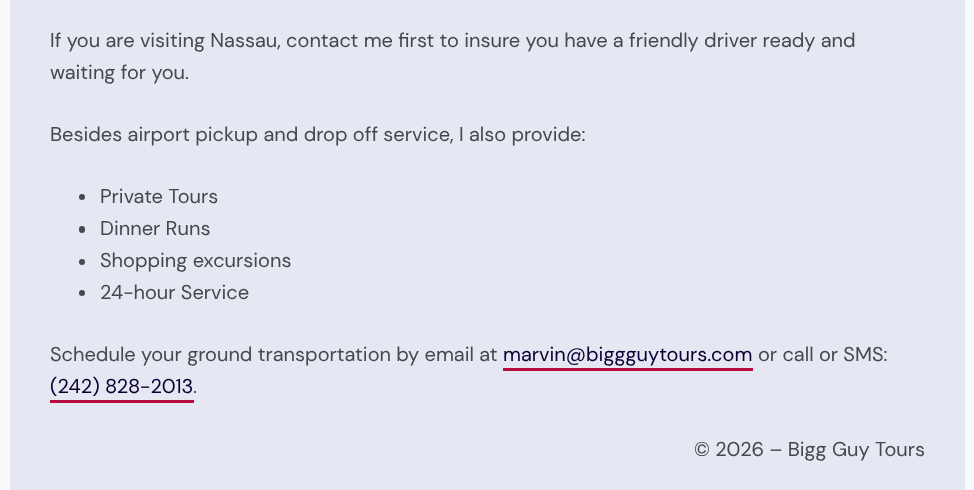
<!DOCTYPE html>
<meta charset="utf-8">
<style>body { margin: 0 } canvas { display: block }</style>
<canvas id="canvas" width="974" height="490"></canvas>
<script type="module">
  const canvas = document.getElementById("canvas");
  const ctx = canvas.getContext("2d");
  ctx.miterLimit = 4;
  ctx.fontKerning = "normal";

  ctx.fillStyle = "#e5e7f2";
  ctx.fillRect(0, 0, 974, 490);
  ctx.strokeStyle = "#f9f9fb";
  ctx.lineWidth = 10;
  ctx.strokeRect(5, -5, 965, 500);
  ctx.font = "20.05px DM Sans";
  ctx.fillStyle = "#47484b";
  ctx.fillText("If you are visiting Nassau, contact me first to insure you have a friendly driver ready and", 50, 47);
  ctx.fillText("waiting for you.", 50, 79);
  ctx.fillText("Besides airport pickup and drop off service, I also provide:", 50, 141);
  ctx.beginPath();
  ctx.arc(82, 197, 3, 0, Math.PI * 2);
  ctx.fill();
  ctx.fillText("Private Tours", 100, 203);
  ctx.beginPath();
  ctx.roundRect(79, 226, 6, 7, 3);
  ctx.fill();
  ctx.fillText("Dinner Runs", 100, 235);
  ctx.beginPath();
  ctx.arc(82, 262, 3, 0, Math.PI * 2);
  ctx.fill();
  ctx.fillText("Shopping excursions", 100, 267);
  ctx.beginPath();
  ctx.arc(82, 293, 3, 0, Math.PI * 2);
  ctx.fill();
  ctx.fillText("24-hour Service", 100, 299);
  ctx.fillText("Schedule your ground transportation by email at", 50, 361);
  ctx.fillStyle = "#0b0033";
  ctx.fillText("marvin@biggguytours.com", 503, 361);
  ctx.fillStyle = "#b50b3e";
  ctx.fillRect(503, 368, 250, 3);
  ctx.fillStyle = "#47484b";
  ctx.fillText("or call or SMS:", 758, 361);
  ctx.fillStyle = "#0b0033";
  ctx.fillText("(242) 828-2013", 50, 393);
  ctx.fillStyle = "#b50b3e";
  ctx.fillRect(50, 400, 144, 3);
  ctx.fillStyle = "#47484b";
  ctx.fillText(".", 193, 393);
  ctx.fillText("© 2026 – Bigg Guy Tours", 694, 456);
</script>
